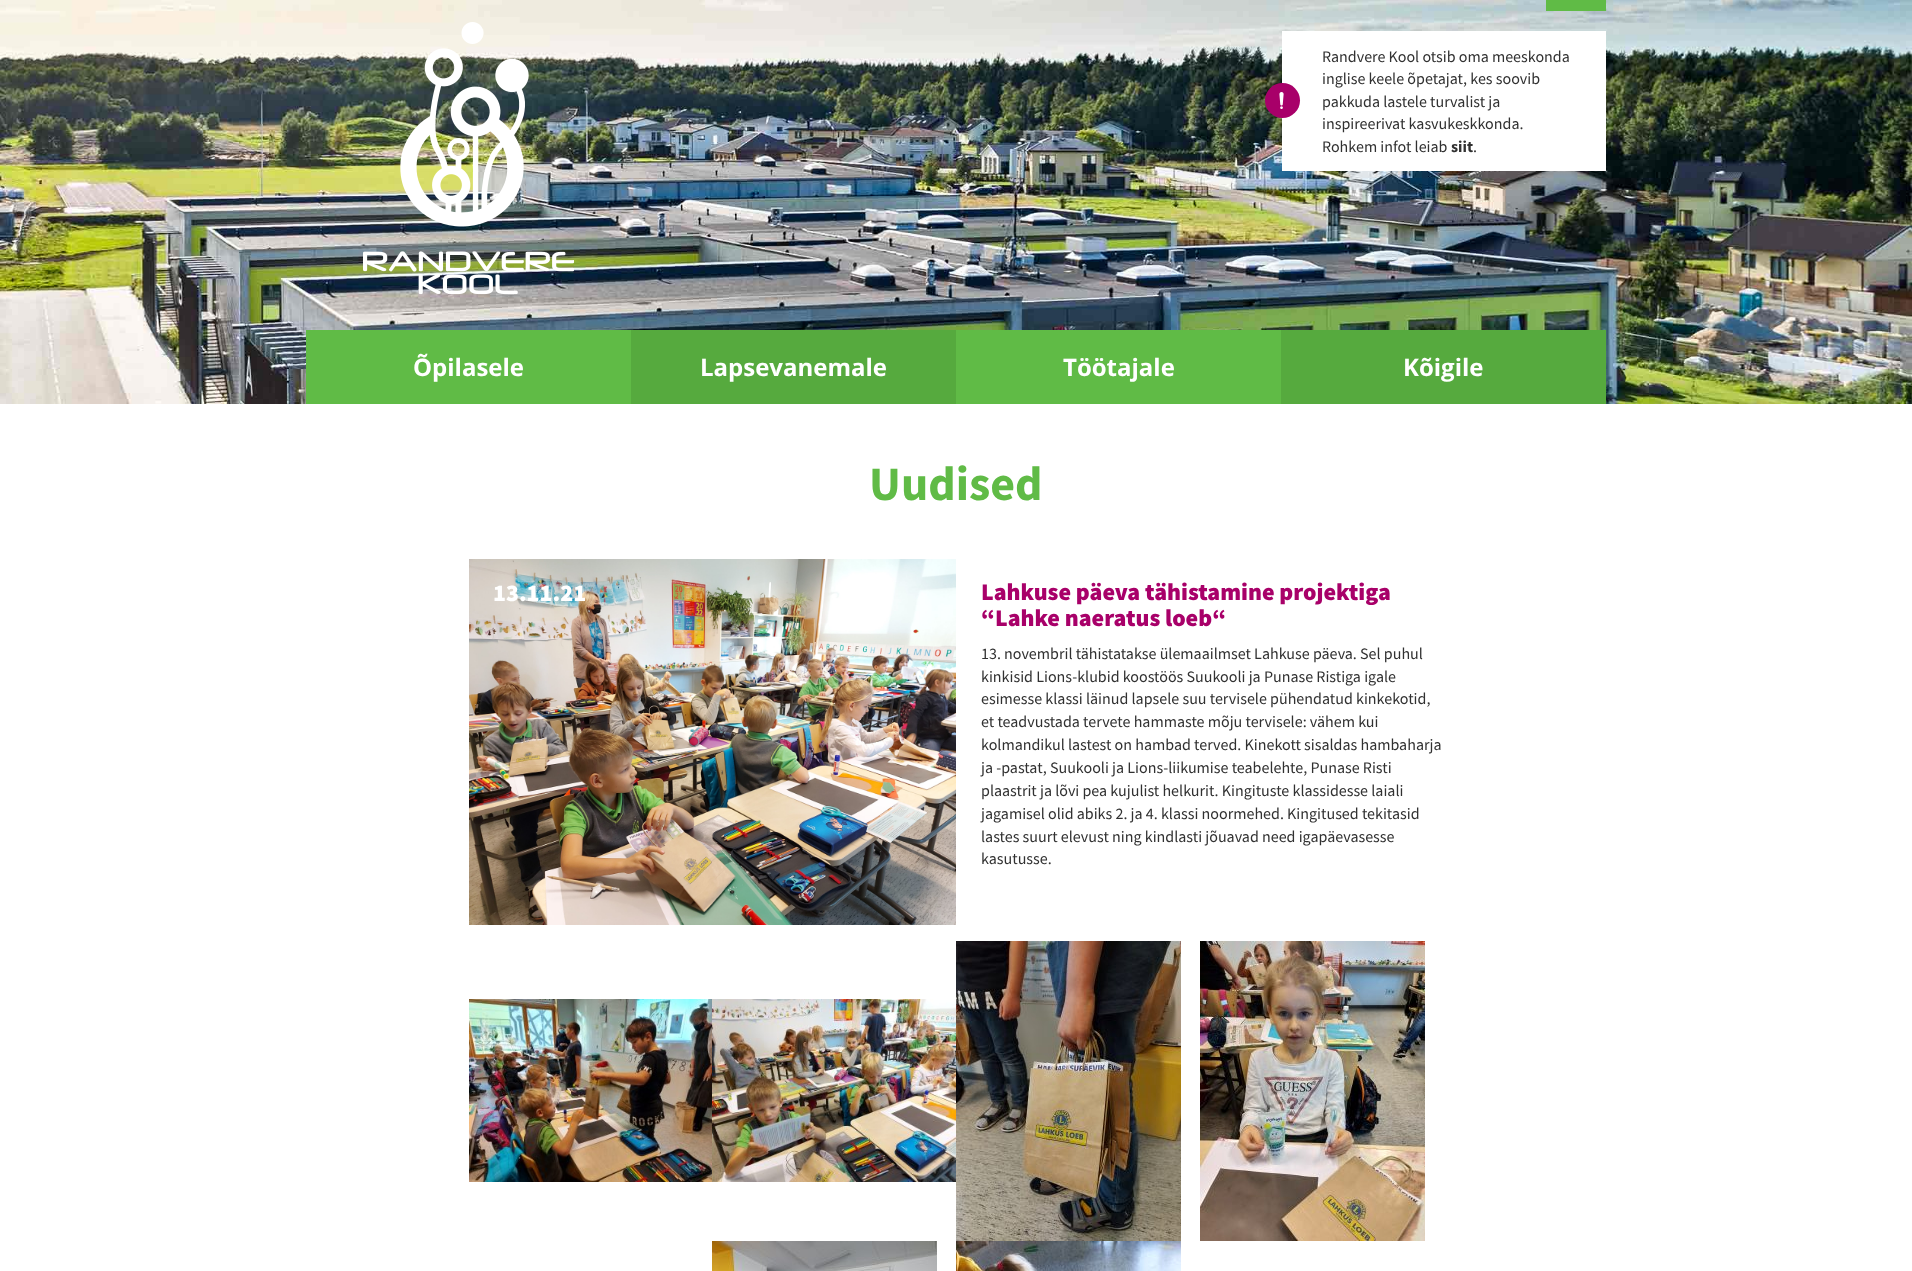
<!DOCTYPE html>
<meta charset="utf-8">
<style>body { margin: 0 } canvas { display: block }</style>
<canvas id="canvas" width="1912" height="1271"></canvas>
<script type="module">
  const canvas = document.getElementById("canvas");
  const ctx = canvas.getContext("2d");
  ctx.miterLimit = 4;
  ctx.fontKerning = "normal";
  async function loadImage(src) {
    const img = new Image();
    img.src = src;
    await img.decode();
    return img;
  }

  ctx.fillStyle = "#ffffff";
  ctx.fillRect(0, 0, 1912, 1271);
  ctx.drawImage(await loadImage("img1.png"), 0, 0, 1912, 404);
  ctx.fillStyle = "#60bb46";
  ctx.fillRect(1546, 0, 60, 11);
  ctx.drawImage(await loadImage("img2.png"), 363, 22, 211, 273);
  ctx.fillStyle = "#ffffff";
  ctx.fillRect(1282, 31, 324, 140);
  ctx.fillStyle = "#a80069";
  ctx.beginPath();
  ctx.arc(1282.5, 100.5, 17.5, 0, Math.PI * 2);
  ctx.fill();
  ctx.drawImage(await loadImage("img3.png"), 1279, 92, 5, 17);
  ctx.font = "16px Source Sans Pro";
  ctx.fillStyle = "#313131";
  ctx.fillText("Randvere Kool otsib oma meeskonda", 1322, 62);
  ctx.fillText("inglise keele õpetajat, kes soovib", 1322, 84);
  ctx.fillText("pakkuda lastele turvalist ja", 1322, 107);
  ctx.fillText("inspireerivat kasvukeskkonda.", 1322, 129);
  ctx.fillText("Rohkem infot leiab", 1322, 152);
  ctx.font = "bold 16px Source Sans Pro";
  ctx.fillText("siit", 1451, 152);
  ctx.font = "16px Source Sans Pro";
  ctx.fillText(".", 1473, 152);
  ctx.fillStyle = "#60bb46";
  ctx.fillRect(306, 330, 325, 74);
  ctx.font = "bold 24px Open Sans";
  ctx.fillStyle = "#ffffff";
  ctx.fillText("Õpilasele", 413, 376);
  ctx.fillStyle = "#56aa3e";
  ctx.fillRect(631, 330, 325, 74);
  ctx.fillStyle = "#ffffff";
  ctx.fillText("Lapsevanemale", 700, 376);
  ctx.fillStyle = "#60bb46";
  ctx.fillRect(956, 330, 325, 74);
  ctx.fillStyle = "#ffffff";
  ctx.fillText("Töötajale", 1063, 376);
  ctx.fillStyle = "#56aa3e";
  ctx.fillRect(1281, 330, 325, 74);
  ctx.fillStyle = "#ffffff";
  ctx.fillText("Kõigile", 1403, 376);
  ctx.font = "bold 48px Source Sans Pro";
  ctx.fillStyle = "#60bb46";
  ctx.fillText("Uudised", 869, 500);
  ctx.drawImage(await loadImage("img4.png"), 469, 559, 487, 366);
  ctx.font = "900 24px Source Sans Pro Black";
  ctx.fillStyle = "#ffffff";
  ctx.fillText("13.11.21", 493, 601);
  ctx.fillStyle = "#a80069";
  ctx.fillText("Lahkuse päeva tähistamine projektiga", 981, 600);
  ctx.fillText("“Lahke naeratus loeb“", 981, 626);
  ctx.font = "16px Source Sans Pro";
  ctx.fillStyle = "#313131";
  ctx.fillText("13. novembril tähistatakse ülemaailmset Lahkuse päeva. Sel puhul", 981, 659);
  ctx.fillText("kinkisid Lions-klubid koostöös Suukooli ja Punase Ristiga igale", 981, 682);
  ctx.fillText("esimesse klassi läinud lapsele suu tervisele pühendatud kinkekotid,", 981, 704);
  ctx.fillText("et teadvustada tervete hammaste mõju tervisele: vähem kui", 981, 727);
  ctx.fillText("kolmandikul lastest on hambad terved. Kinekott sisaldas hambaharja", 981, 750);
  ctx.fillText("ja -pastat, Suukooli ja Lions-liikumise teabelehte, Punase Risti", 981, 773);
  ctx.fillText("plaastrit ja lõvi pea kujulist helkurit. Kingituste klassidesse laiali", 981, 796);
  ctx.fillText("jagamisel olid abiks 2. ja 4. klassi noormehed. Kingitused tekitasid", 981, 819);
  ctx.fillText("lastes suurt elevust ning kindlasti jõuavad need igapäevasesse", 981, 842);
  ctx.fillText("kasutusse.", 981, 864);
  ctx.drawImage(await loadImage("img5.png"), 469, 999, 243, 183);
  ctx.drawImage(await loadImage("img6.png"), 712, 999, 244, 183);
  ctx.drawImage(await loadImage("img7.png"), 956, 941, 225, 300);
  ctx.drawImage(await loadImage("img8.png"), 1200, 941, 225, 300);
  ctx.drawImage(await loadImage("img9.png"), 712, 1241, 225, 30);
  ctx.drawImage(await loadImage("img10.png"), 956, 1241, 225, 30);
</script>
